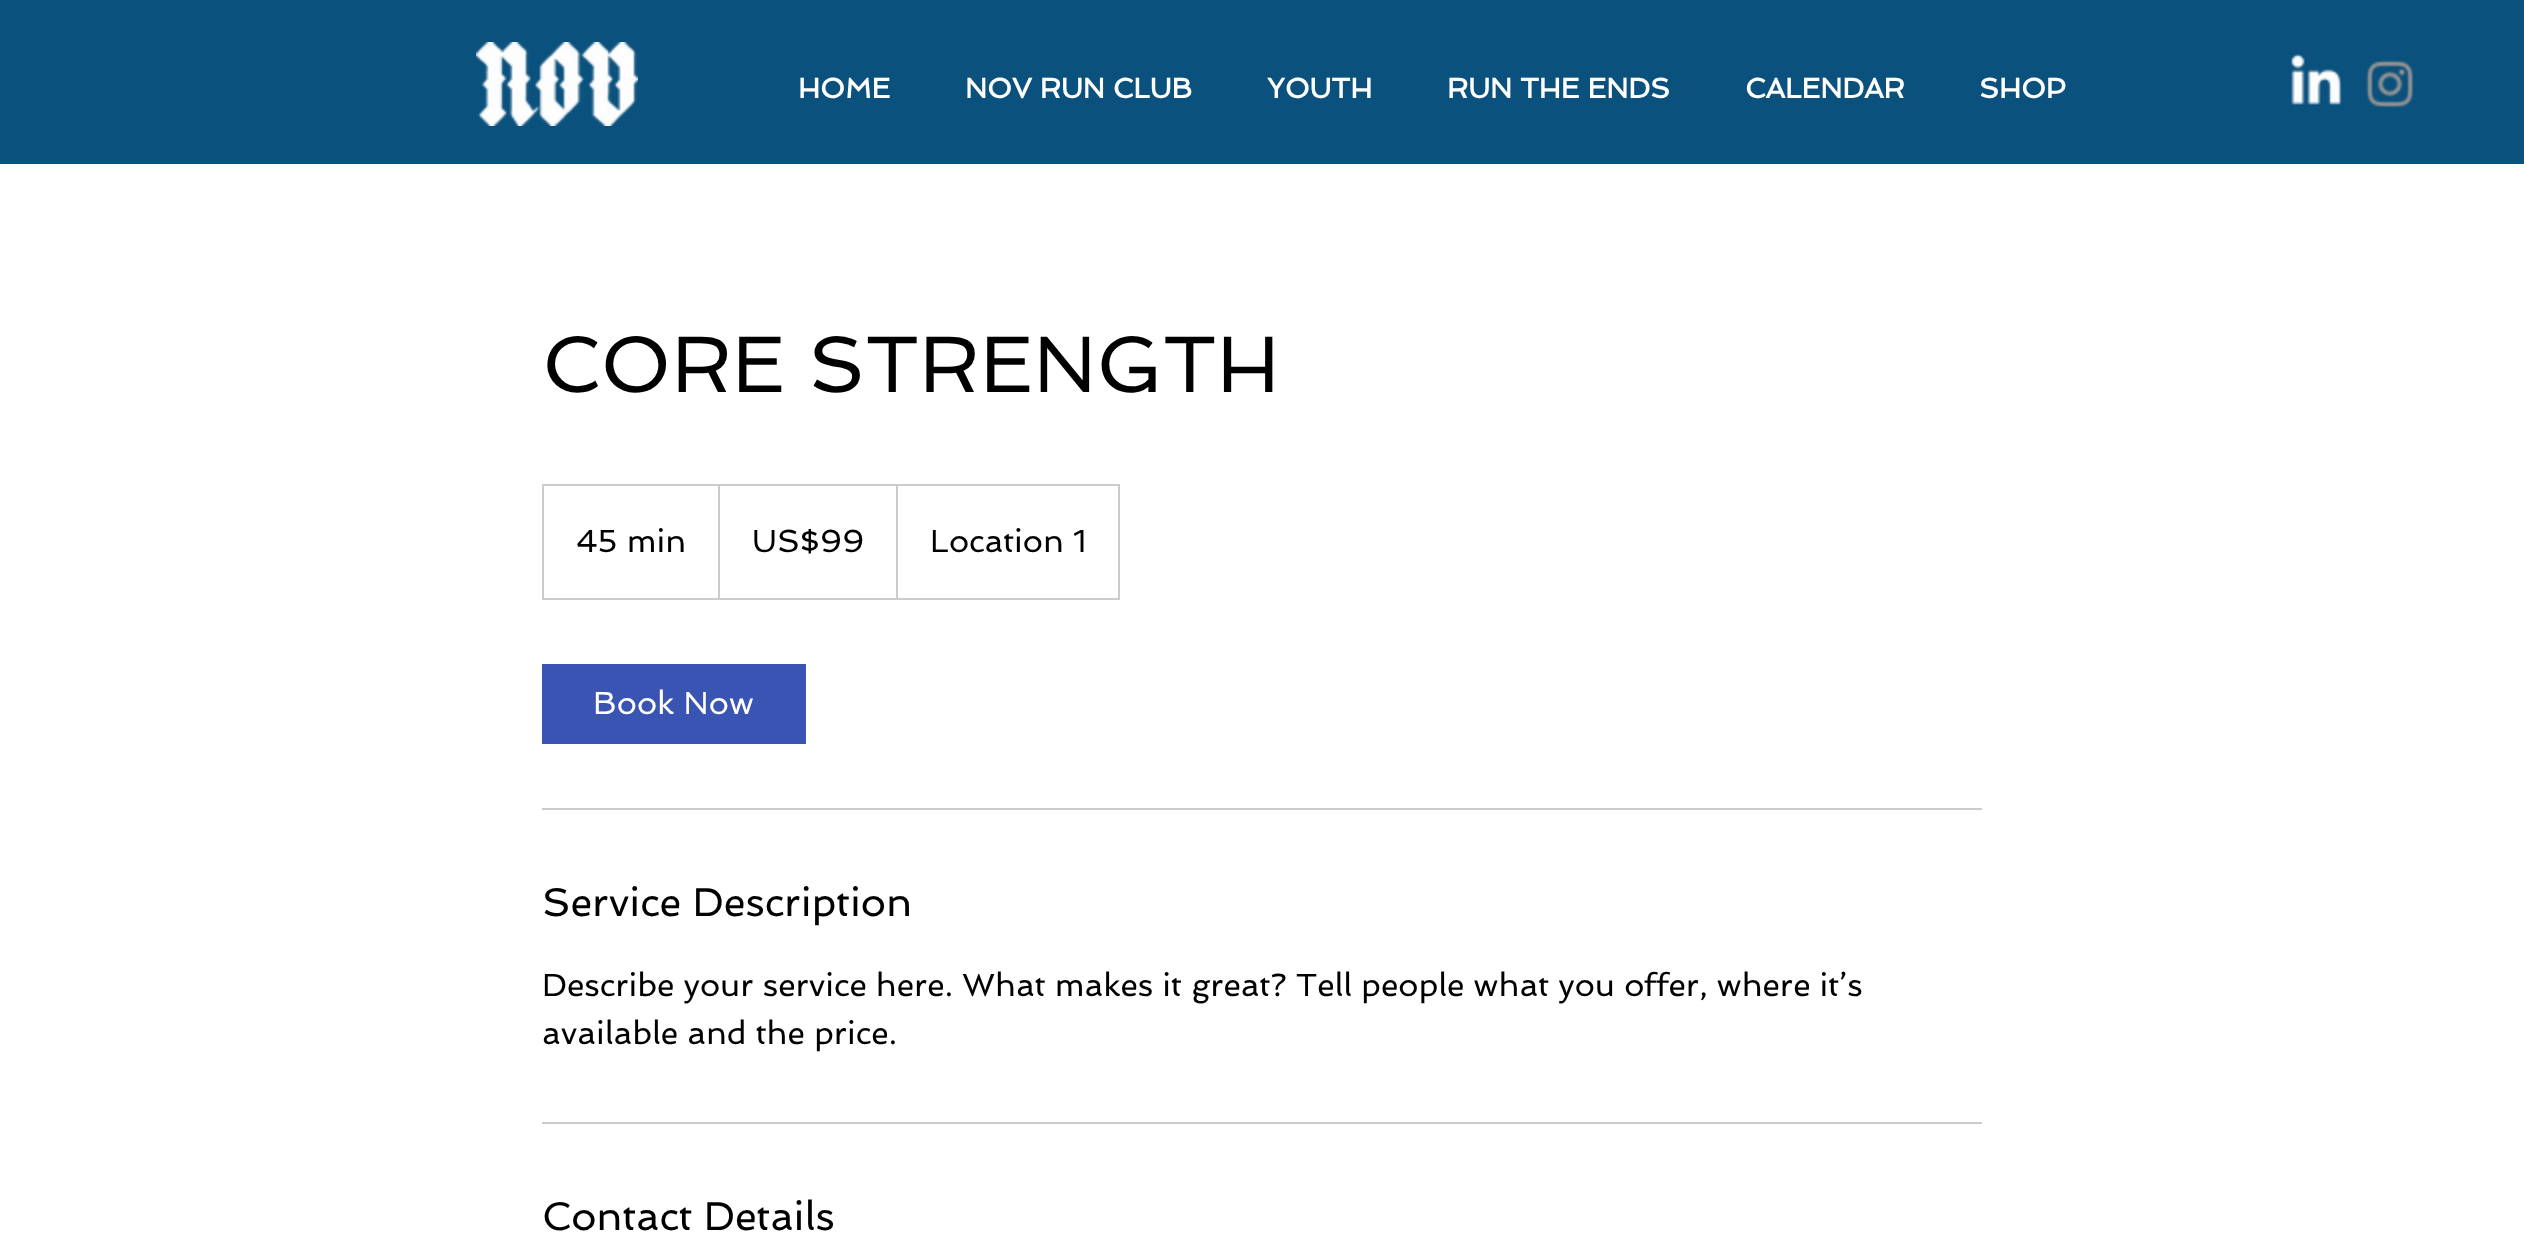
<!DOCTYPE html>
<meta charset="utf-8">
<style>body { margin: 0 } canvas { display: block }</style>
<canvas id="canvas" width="2524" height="1241"></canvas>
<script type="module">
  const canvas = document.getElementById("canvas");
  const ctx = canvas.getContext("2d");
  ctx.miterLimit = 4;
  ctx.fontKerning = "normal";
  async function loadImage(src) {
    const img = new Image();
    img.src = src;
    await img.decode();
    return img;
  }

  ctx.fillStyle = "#0b517d";
  ctx.fillRect(0, 0, 2524, 1241);
  ctx.drawImage(await loadImage("img1.png"), 476, 42, 162, 84);
  ctx.font = "bold 28px Spinnaker";
  ctx.fillStyle = "#ffffff";
  ctx.fillText("HOME", 798, 98);
  ctx.fillText("NOV RUN CLUB", 965, 98);
  ctx.fillText("YOUTH", 1267, 98);
  ctx.fillText("RUN THE ENDS", 1447, 98);
  ctx.fillText("CALENDAR", 1745, 98);
  ctx.fillText("SHOP", 1979, 98);
  ctx.drawImage(await loadImage("img2.png"), 2291, 54, 51, 51);
  ctx.drawImage(await loadImage("img3.png"), 2365, 59, 49, 49);
  ctx.fillRect(0, 164, 2524, 1077);
  ctx.font = "80px Spinnaker";
  ctx.fillStyle = "#000000";
  ctx.fillText("CORE STRENGTH", 542, 392);
  ctx.strokeStyle = "#cccccc";
  ctx.lineWidth = 2;
  ctx.strokeRect(543, 485, 576, 114);
  ctx.font = "32px Spinnaker";
  ctx.fillText("45 min", 576, 552);
  ctx.save();
  ctx.beginPath();
  ctx.rect(544, 486, 574, 112);
  ctx.clip();
  ctx.fillStyle = "#cccccc";
  ctx.beginPath();
  ctx.moveTo(718, 598);
  ctx.lineTo(718, 484);
  ctx.lineTo(720, 486);
  ctx.lineTo(720, 598);
  ctx.closePath();
  ctx.fill();
  ctx.restore();
  ctx.fillText("US$99", 752, 552);
  ctx.save();
  ctx.beginPath();
  ctx.rect(544, 486, 574, 112);
  ctx.clip();
  ctx.fillStyle = "#cccccc";
  ctx.beginPath();
  ctx.moveTo(896, 598);
  ctx.lineTo(896, 484);
  ctx.lineTo(898, 486);
  ctx.lineTo(898, 598);
  ctx.closePath();
  ctx.fill();
  ctx.restore();
  ctx.fillText("Location 1", 930, 552);
  ctx.fillStyle = "#3a54b4";
  ctx.fillRect(542, 664, 264, 80);
  ctx.fillStyle = "#ffffff";
  ctx.fillText("Book Now", 593, 714);
  ctx.fillStyle = "#cccccc";
  ctx.fillRect(542, 808, 1440, 2);
  ctx.font = "40px Spinnaker";
  ctx.fillStyle = "#000000";
  ctx.fillText("Service Description", 542, 916);
  ctx.font = "32px Spinnaker";
  ctx.fillText("Describe your service here. What makes it great? Tell people what you offer, where it’s", 542, 996);
  ctx.fillText("available and the price.", 542, 1044);
  ctx.fillStyle = "#cccccc";
  ctx.fillRect(542, 1122, 1440, 2);
  ctx.font = "40px Spinnaker";
  ctx.fillStyle = "#000000";
  ctx.fillText("Contact Details", 542, 1230);
</script>
